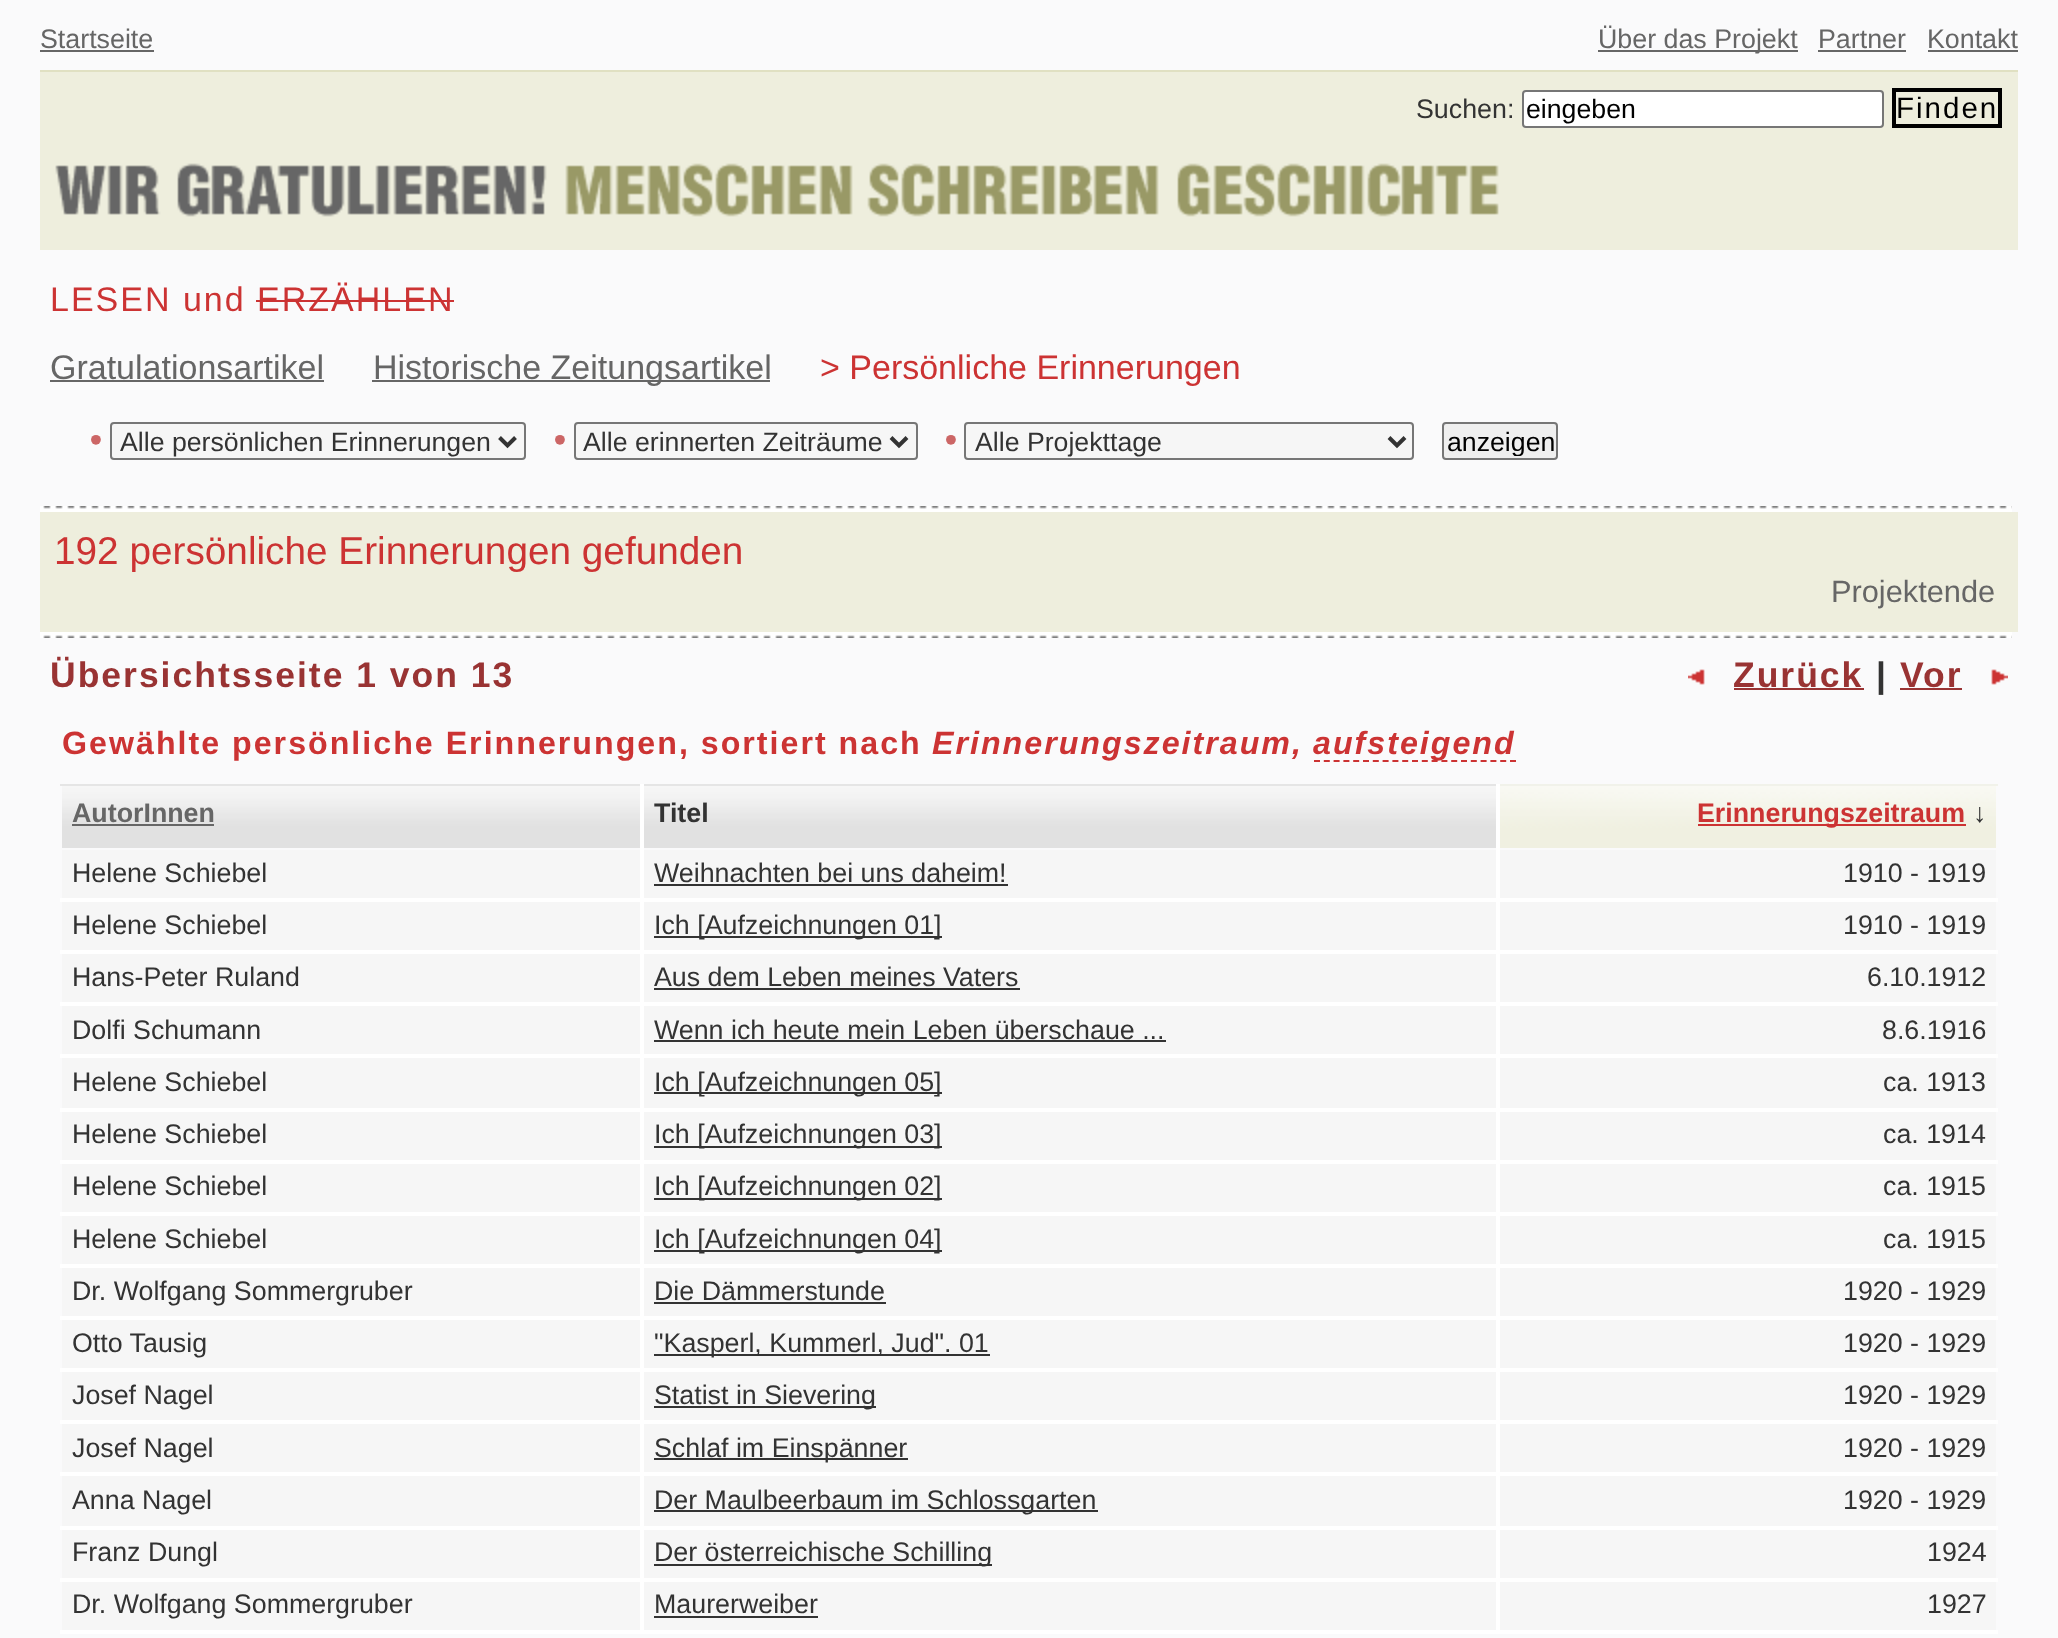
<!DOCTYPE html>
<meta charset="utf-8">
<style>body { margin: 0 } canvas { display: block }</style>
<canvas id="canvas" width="2058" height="1638"></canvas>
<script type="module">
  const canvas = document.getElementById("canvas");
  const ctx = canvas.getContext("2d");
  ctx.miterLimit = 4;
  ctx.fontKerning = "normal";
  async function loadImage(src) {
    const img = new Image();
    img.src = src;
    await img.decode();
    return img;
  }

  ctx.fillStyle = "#fafafb";
  ctx.fillRect(0, 0, 2058, 1638);
  ctx.font = "26.8px Liberation Sans";
  ctx.fillStyle = "#666666";
  ctx.fillText("Startseite", 40, 48);
  ctx.fillRect(40, 50, 114, 2);
  ctx.fillRect(1598, 50, 200, 2);
  ctx.fillText("Über das Projekt", 1598, 48);
  ctx.fillText("Partner", 1818, 48);
  ctx.fillRect(1818, 50, 88, 2);
  ctx.fillText("Kontakt", 1927, 48);
  ctx.fillRect(1928, 50, 90, 2);
  ctx.fillStyle = "#eeeedd";
  ctx.fillRect(40, 72, 1978, 178);
  ctx.fillStyle = "#e0e0c2";
  ctx.fillRect(40, 70, 1978, 2);
  ctx.fillStyle = "#333333";
  ctx.fillText("Suchen:", 1416, 118);
  ctx.fillStyle = "#ffffff";
  ctx.beginPath();
  ctx.roundRect(1523, 91, 360, 36, 3);
  ctx.fill();
  ctx.strokeStyle = "#767676";
  ctx.lineWidth = 2;
  ctx.stroke();
  ctx.font = "26.7px Liberation Sans";
  ctx.fillStyle = "#000000";
  ctx.fillText("eingeben", 1526, 118);
  ctx.strokeStyle = "#000000";
  ctx.lineWidth = 4;
  ctx.strokeRect(1894, 90, 106, 36);
  ctx.letterSpacing = "2px";
  ctx.font = "29.5px Liberation Sans";
  ctx.fillText("Finden", 1896, 118);
  ctx.drawImage(await loadImage("img1.png"), 55, 163, 1444, 54);
  ctx.font = "34px Liberation Sans";
  ctx.fillStyle = "#cc3333";
  ctx.fillText("LESEN und ERZÄHLEN", 50, 311);
  ctx.fillRect(256, 300, 198, 2);
  ctx.letterSpacing = "0px";
  ctx.fillStyle = "#666666";
  ctx.fillText("Gratulationsartikel", 50, 379);
  ctx.fillRect(50, 380, 274, 2);
  ctx.fillRect(372, 380, 398, 2);
  ctx.fillText("Historische Zeitungsartikel", 373, 379);
  ctx.fillStyle = "#cc3333";
  ctx.fillText("> Persönliche Erinnerungen", 820, 379);
  ctx.font = "bold 34px Liberation Sans";
  ctx.fillStyle = "#cc6666";
  ctx.fillText("•", 90, 451);
  ctx.fillStyle = "#f6f6f6";
  ctx.beginPath();
  ctx.roundRect(111, 423, 414, 36, 3);
  ctx.fill();
  ctx.strokeStyle = "#767676";
  ctx.lineWidth = 2;
  ctx.stroke();
  ctx.beginPath();
  ctx.moveTo(499.5, 437.5);
  ctx.lineTo(507.5, 445.5);
  ctx.lineTo(515.5, 437.5);
  ctx.strokeStyle = "#333333";
  ctx.lineWidth = 4;
  ctx.stroke();
  ctx.font = "26.7px Liberation Sans";
  ctx.fillStyle = "#333333";
  ctx.fillText("Alle persönlichen Erinnerungen", 120, 451);
  ctx.font = "bold 34px Liberation Sans";
  ctx.fillStyle = "#cc6666";
  ctx.fillText("•", 554, 451);
  ctx.fillStyle = "#f6f6f6";
  ctx.beginPath();
  ctx.roundRect(575, 423, 342, 36, 3);
  ctx.fill();
  ctx.strokeStyle = "#767676";
  ctx.lineWidth = 2;
  ctx.stroke();
  ctx.beginPath();
  ctx.moveTo(891, 437.5);
  ctx.lineTo(899, 445.5);
  ctx.lineTo(907, 437.5);
  ctx.strokeStyle = "#333333";
  ctx.lineWidth = 4;
  ctx.stroke();
  ctx.font = "26.7px Liberation Sans";
  ctx.fillStyle = "#333333";
  ctx.fillText("Alle erinnerten Zeiträume", 583, 451);
  ctx.font = "bold 34px Liberation Sans";
  ctx.fillStyle = "#cc6666";
  ctx.fillText("•", 945, 451);
  ctx.fillStyle = "#f6f6f6";
  ctx.beginPath();
  ctx.roundRect(965, 423, 448, 36, 3);
  ctx.fill();
  ctx.strokeStyle = "#767676";
  ctx.lineWidth = 2;
  ctx.stroke();
  ctx.beginPath();
  ctx.moveTo(1389, 437.5);
  ctx.lineTo(1397, 445.5);
  ctx.lineTo(1405, 437.5);
  ctx.strokeStyle = "#333333";
  ctx.lineWidth = 4;
  ctx.stroke();
  ctx.font = "26.7px Liberation Sans";
  ctx.fillStyle = "#333333";
  ctx.fillText("Alle Projekttage", 975, 451);
  ctx.fillStyle = "#efefef";
  ctx.beginPath();
  ctx.roundRect(1443, 423, 114, 36, 3);
  ctx.fill();
  ctx.strokeStyle = "#767676";
  ctx.lineWidth = 2;
  ctx.stroke();
  ctx.save();
  ctx.beginPath();
  ctx.rect(1446, 426, 108, 30);
  ctx.clip();
  ctx.fillStyle = "#000000";
  ctx.fillText("anzeigen", 1447, 451);
  ctx.restore();
  ctx.drawImage(await loadImage("img2.png"), 40, 506, 1972, 6);
  ctx.fillStyle = "#eeeedd";
  ctx.fillRect(40, 512, 1978, 120);
  ctx.font = "38.75px Liberation Sans";
  ctx.fillStyle = "#cc3333";
  ctx.fillText("192 persönliche Erinnerungen gefunden", 54, 564);
  ctx.font = "30.75px Liberation Sans";
  ctx.fillStyle = "#666666";
  ctx.fillText("Projektende", 1831, 602);
  ctx.drawImage(await loadImage("img3.png"), 40, 632, 1972, 6);
  ctx.letterSpacing = "2px";
  ctx.font = "bold 35.5px Liberation Sans";
  ctx.fillStyle = "#993333";
  ctx.fillText("Übersichtsseite 1 von 13", 50, 687);
  ctx.drawImage(await loadImage("img4.png"), 1688, 669, 17, 16);
  ctx.fillText("Zurück", 1733, 687);
  ctx.fillRect(1734, 688, 130, 2);
  ctx.fillStyle = "#333333";
  ctx.fillText("|", 1876, 687);
  ctx.fillStyle = "#993333";
  ctx.fillText("Vor", 1900, 687);
  ctx.fillRect(1900, 688, 62, 2);
  ctx.drawImage(await loadImage("img5.png"), 1991, 669, 17, 16);
  ctx.font = "bold 32.2px Liberation Sans";
  ctx.fillStyle = "#cc3333";
  ctx.fillText("Gewählte persönliche Erinnerungen, sortiert nach", 62, 754);
  ctx.font = "italic bold 32.2px Liberation Sans";
  ctx.fillText("Erinnerungszeitraum,", 932, 754);
  ctx.beginPath();
  ctx.moveTo(1314, 761);
  ctx.lineTo(1516, 761);
  ctx.strokeStyle = "#cc3333";
  ctx.setLineDash([6, 3.8]);
  ctx.stroke();
  ctx.fillText("aufsteigend", 1313, 754);
  ctx.drawImage(await loadImage("img6.png"), 62, 786, 578, 62);
  ctx.letterSpacing = "0px";
  ctx.font = "bold 26.8px Liberation Sans";
  ctx.fillStyle = "#666666";
  ctx.fillText("AutorInnen", 72, 822);
  ctx.fillRect(72, 824, 142, 2);
  ctx.drawImage(await loadImage("img7.png"), 644, 786, 852, 62);
  ctx.fillStyle = "#f1f2ea";
  ctx.fillRect(1498, 784, 500, 2);
  ctx.fillStyle = "#e5e5e5";
  ctx.fillRect(60, 784, 1440, 2);
  ctx.fillStyle = "#333333";
  ctx.fillText("Titel", 654, 822);
  ctx.drawImage(await loadImage("img8.png"), 1500, 786, 496, 62);
  ctx.fillStyle = "#cc3333";
  ctx.fillRect(1698, 824, 268, 2);
  ctx.fillText("Erinnerungszeitraum", 1697, 822);
  ctx.fillStyle = "#333333";
  ctx.fillText("↓", 1973, 822);
  ctx.fillStyle = "#f6f6f6";
  ctx.fillRect(62, 850, 578, 48);
  ctx.fillStyle = "#ffffff";
  ctx.fillRect(1496, 1630, 502, 4);
  ctx.fillRect(1496, 1578, 4, 56);
  ctx.fillRect(1496, 1578, 502, 4);
  ctx.fillRect(1496, 1526, 4, 56);
  ctx.fillRect(1496, 1526, 502, 4);
  ctx.fillRect(1496, 1472, 4, 58);
  ctx.fillRect(1496, 1472, 502, 4);
  ctx.fillRect(1496, 1420, 4, 56);
  ctx.fillRect(1496, 1420, 502, 4);
  ctx.fillRect(1496, 1368, 4, 56);
  ctx.fillRect(1496, 1368, 502, 4);
  ctx.fillRect(1496, 1316, 4, 56);
  ctx.fillRect(1496, 1316, 502, 4);
  ctx.fillRect(1496, 1264, 4, 56);
  ctx.fillRect(1496, 1264, 502, 4);
  ctx.fillRect(1496, 1212, 4, 56);
  ctx.fillRect(1496, 1212, 502, 4);
  ctx.fillRect(1496, 1160, 4, 56);
  ctx.fillRect(1496, 1160, 502, 4);
  ctx.fillRect(1496, 1108, 4, 56);
  ctx.fillRect(1496, 1108, 502, 4);
  ctx.fillRect(1496, 1054, 4, 58);
  ctx.fillRect(1496, 1054, 502, 4);
  ctx.fillRect(1496, 1002, 4, 56);
  ctx.fillRect(1496, 1002, 502, 4);
  ctx.fillRect(1496, 950, 4, 56);
  ctx.fillRect(1496, 950, 502, 4);
  ctx.fillRect(1496, 898, 4, 56);
  ctx.fillRect(1496, 898, 502, 4);
  ctx.fillRect(1496, 784, 4, 118);
  ctx.fillRect(640, 1630, 860, 4);
  ctx.fillRect(640, 1578, 4, 56);
  ctx.fillRect(640, 1578, 860, 4);
  ctx.fillRect(640, 1526, 4, 56);
  ctx.fillRect(640, 1526, 860, 4);
  ctx.fillRect(640, 1472, 4, 58);
  ctx.fillRect(640, 1472, 860, 4);
  ctx.fillRect(640, 1420, 4, 56);
  ctx.fillRect(640, 1420, 860, 4);
  ctx.fillRect(640, 1368, 4, 56);
  ctx.fillRect(640, 1368, 860, 4);
  ctx.fillRect(640, 1316, 4, 56);
  ctx.fillRect(640, 1316, 860, 4);
  ctx.fillRect(640, 1264, 4, 56);
  ctx.fillRect(640, 1264, 860, 4);
  ctx.fillRect(640, 1212, 4, 56);
  ctx.fillRect(640, 1212, 860, 4);
  ctx.fillRect(640, 1160, 4, 56);
  ctx.fillRect(640, 1160, 860, 4);
  ctx.fillRect(640, 1108, 4, 56);
  ctx.fillRect(640, 1108, 860, 4);
  ctx.fillRect(640, 1054, 4, 58);
  ctx.fillRect(640, 1054, 860, 4);
  ctx.fillRect(640, 1002, 4, 56);
  ctx.fillRect(640, 1002, 860, 4);
  ctx.fillRect(640, 950, 4, 56);
  ctx.fillRect(640, 950, 860, 4);
  ctx.fillRect(640, 898, 4, 56);
  ctx.fillRect(640, 898, 860, 4);
  ctx.fillRect(640, 784, 4, 118);
  ctx.fillRect(60, 898, 584, 4);
  ctx.font = "26.8px Liberation Sans";
  ctx.fillStyle = "#333333";
  ctx.fillText("Helene Schiebel", 72, 882);
  ctx.fillStyle = "#f6f6f6";
  ctx.fillRect(644, 850, 852, 48);
  ctx.fillStyle = "#333333";
  ctx.fillText("Weihnachten bei uns daheim!", 654, 882);
  ctx.fillRect(654, 884, 354, 2);
  ctx.fillStyle = "#f6f6f6";
  ctx.fillRect(1500, 850, 496, 48);
  ctx.fillStyle = "#333333";
  ctx.fillText("1910 - 1919", 1843, 882);
  ctx.fillStyle = "#f6f6f6";
  ctx.fillRect(62, 902, 578, 48);
  ctx.fillStyle = "#ffffff";
  ctx.fillRect(60, 950, 584, 4);
  ctx.fillStyle = "#333333";
  ctx.fillText("Helene Schiebel", 72, 934);
  ctx.fillStyle = "#f6f6f6";
  ctx.fillRect(644, 902, 852, 48);
  ctx.fillStyle = "#333333";
  ctx.fillRect(654, 936, 288, 2);
  ctx.fillText("Ich [Aufzeichnungen 01]", 654, 934);
  ctx.fillStyle = "#f6f6f6";
  ctx.fillRect(1500, 902, 496, 48);
  ctx.fillStyle = "#333333";
  ctx.fillText("1910 - 1919", 1843, 934);
  ctx.fillStyle = "#f6f6f6";
  ctx.fillRect(62, 954, 578, 48);
  ctx.fillStyle = "#ffffff";
  ctx.fillRect(60, 1002, 584, 4);
  ctx.fillStyle = "#333333";
  ctx.fillText("Hans-Peter Ruland", 72, 986);
  ctx.fillStyle = "#f6f6f6";
  ctx.fillRect(644, 954, 852, 48);
  ctx.fillStyle = "#333333";
  ctx.fillText("Aus dem Leben meines Vaters", 654, 986);
  ctx.fillRect(654, 988, 366, 2);
  ctx.fillStyle = "#f6f6f6";
  ctx.fillRect(1500, 954, 496, 48);
  ctx.fillStyle = "#333333";
  ctx.fillText("6.10.1912", 1867, 986);
  ctx.fillStyle = "#f6f6f6";
  ctx.fillRect(62, 1006, 578, 48);
  ctx.fillStyle = "#ffffff";
  ctx.fillRect(60, 1054, 584, 4);
  ctx.fillStyle = "#333333";
  ctx.fillText("Dolfi Schumann", 72, 1039);
  ctx.fillStyle = "#f6f6f6";
  ctx.fillRect(644, 1006, 852, 48);
  ctx.fillStyle = "#333333";
  ctx.fillText("Wenn ich heute mein Leben überschaue ...", 654, 1039);
  ctx.fillRect(654, 1040, 512, 2);
  ctx.fillStyle = "#f6f6f6";
  ctx.fillRect(1500, 1006, 496, 48);
  ctx.fillStyle = "#333333";
  ctx.fillText("8.6.1916", 1882, 1039);
  ctx.fillStyle = "#f6f6f6";
  ctx.fillRect(62, 1058, 578, 50);
  ctx.fillStyle = "#ffffff";
  ctx.fillRect(60, 1108, 584, 4);
  ctx.fillStyle = "#333333";
  ctx.fillText("Helene Schiebel", 72, 1091);
  ctx.fillStyle = "#f6f6f6";
  ctx.fillRect(644, 1058, 852, 50);
  ctx.fillStyle = "#333333";
  ctx.fillRect(654, 1092, 288, 2);
  ctx.fillText("Ich [Aufzeichnungen 05]", 654, 1091);
  ctx.fillStyle = "#f6f6f6";
  ctx.fillRect(1500, 1058, 496, 50);
  ctx.fillStyle = "#333333";
  ctx.fillText("ca. 1913", 1883, 1091);
  ctx.fillStyle = "#f6f6f6";
  ctx.fillRect(62, 1112, 578, 48);
  ctx.fillStyle = "#ffffff";
  ctx.fillRect(60, 1160, 584, 4);
  ctx.fillStyle = "#333333";
  ctx.fillText("Helene Schiebel", 72, 1143);
  ctx.fillStyle = "#f6f6f6";
  ctx.fillRect(644, 1112, 852, 48);
  ctx.fillStyle = "#333333";
  ctx.fillRect(654, 1146, 288, 2);
  ctx.fillText("Ich [Aufzeichnungen 03]", 654, 1143);
  ctx.fillStyle = "#f6f6f6";
  ctx.fillRect(1500, 1112, 496, 48);
  ctx.fillStyle = "#333333";
  ctx.fillText("ca. 1914", 1883, 1143);
  ctx.fillStyle = "#f6f6f6";
  ctx.fillRect(62, 1164, 578, 48);
  ctx.fillStyle = "#ffffff";
  ctx.fillRect(60, 1212, 584, 4);
  ctx.fillStyle = "#333333";
  ctx.fillText("Helene Schiebel", 72, 1195);
  ctx.fillStyle = "#f6f6f6";
  ctx.fillRect(644, 1164, 852, 48);
  ctx.fillStyle = "#333333";
  ctx.fillRect(654, 1198, 288, 2);
  ctx.fillText("Ich [Aufzeichnungen 02]", 654, 1195);
  ctx.fillStyle = "#f6f6f6";
  ctx.fillRect(1500, 1164, 496, 48);
  ctx.fillStyle = "#333333";
  ctx.fillText("ca. 1915", 1883, 1195);
  ctx.fillStyle = "#f6f6f6";
  ctx.fillRect(62, 1216, 578, 48);
  ctx.fillStyle = "#ffffff";
  ctx.fillRect(60, 1264, 584, 4);
  ctx.fillStyle = "#333333";
  ctx.fillText("Helene Schiebel", 72, 1248);
  ctx.fillStyle = "#f6f6f6";
  ctx.fillRect(644, 1216, 852, 48);
  ctx.fillStyle = "#333333";
  ctx.fillRect(654, 1250, 288, 2);
  ctx.fillText("Ich [Aufzeichnungen 04]", 654, 1248);
  ctx.fillStyle = "#f6f6f6";
  ctx.fillRect(1500, 1216, 496, 48);
  ctx.fillStyle = "#333333";
  ctx.fillText("ca. 1915", 1883, 1248);
  ctx.fillStyle = "#f6f6f6";
  ctx.fillRect(62, 1268, 578, 48);
  ctx.fillStyle = "#ffffff";
  ctx.fillRect(60, 1316, 584, 4);
  ctx.fillStyle = "#333333";
  ctx.fillText("Dr. Wolfgang Sommergruber", 72, 1300);
  ctx.fillStyle = "#f6f6f6";
  ctx.fillRect(644, 1268, 852, 48);
  ctx.fillStyle = "#333333";
  ctx.fillText("Die Dämmerstunde", 654, 1300);
  ctx.fillRect(654, 1302, 232, 2);
  ctx.fillStyle = "#f6f6f6";
  ctx.fillRect(1500, 1268, 496, 48);
  ctx.fillStyle = "#333333";
  ctx.fillText("1920 - 1929", 1843, 1300);
  ctx.fillStyle = "#f6f6f6";
  ctx.fillRect(62, 1320, 578, 48);
  ctx.fillStyle = "#ffffff";
  ctx.fillRect(60, 1368, 584, 4);
  ctx.fillStyle = "#333333";
  ctx.fillText("Otto Tausig", 72, 1352);
  ctx.fillStyle = "#f6f6f6";
  ctx.fillRect(644, 1320, 852, 48);
  ctx.fillStyle = "#333333";
  ctx.fillRect(654, 1354, 336, 2);
  ctx.fillText("\"Kasperl, Kummerl, Jud\". 01", 654, 1352);
  ctx.fillStyle = "#f6f6f6";
  ctx.fillRect(1500, 1320, 496, 48);
  ctx.fillStyle = "#333333";
  ctx.fillText("1920 - 1929", 1843, 1352);
  ctx.fillStyle = "#f6f6f6";
  ctx.fillRect(62, 1372, 578, 48);
  ctx.fillStyle = "#ffffff";
  ctx.fillRect(60, 1420, 584, 4);
  ctx.fillStyle = "#333333";
  ctx.fillText("Josef Nagel", 72, 1404);
  ctx.fillStyle = "#f6f6f6";
  ctx.fillRect(644, 1372, 852, 48);
  ctx.fillStyle = "#333333";
  ctx.fillRect(654, 1406, 222, 2);
  ctx.fillText("Statist in Sievering", 654, 1404);
  ctx.fillStyle = "#f6f6f6";
  ctx.fillRect(1500, 1372, 496, 48);
  ctx.fillStyle = "#333333";
  ctx.fillText("1920 - 1929", 1843, 1404);
  ctx.fillStyle = "#f6f6f6";
  ctx.fillRect(62, 1424, 578, 48);
  ctx.fillStyle = "#ffffff";
  ctx.fillRect(60, 1472, 584, 4);
  ctx.fillStyle = "#333333";
  ctx.fillText("Josef Nagel", 72, 1457);
  ctx.fillStyle = "#f6f6f6";
  ctx.fillRect(644, 1424, 852, 48);
  ctx.fillStyle = "#333333";
  ctx.fillRect(654, 1458, 254, 2);
  ctx.fillText("Schlaf im Einspänner", 654, 1457);
  ctx.fillStyle = "#f6f6f6";
  ctx.fillRect(1500, 1424, 496, 48);
  ctx.fillStyle = "#333333";
  ctx.fillText("1920 - 1929", 1843, 1457);
  ctx.fillStyle = "#f6f6f6";
  ctx.fillRect(62, 1476, 578, 50);
  ctx.fillStyle = "#ffffff";
  ctx.fillRect(60, 1526, 584, 4);
  ctx.fillStyle = "#333333";
  ctx.fillText("Anna Nagel", 72, 1509);
  ctx.fillStyle = "#f6f6f6";
  ctx.fillRect(644, 1476, 852, 50);
  ctx.fillStyle = "#333333";
  ctx.fillRect(654, 1510, 444, 2);
  ctx.fillText("Der Maulbeerbaum im Schlossgarten", 654, 1509);
  ctx.fillStyle = "#f6f6f6";
  ctx.fillRect(1500, 1476, 496, 50);
  ctx.fillStyle = "#333333";
  ctx.fillText("1920 - 1929", 1843, 1509);
  ctx.fillStyle = "#f6f6f6";
  ctx.fillRect(62, 1530, 578, 48);
  ctx.fillStyle = "#ffffff";
  ctx.fillRect(60, 1578, 584, 4);
  ctx.fillStyle = "#333333";
  ctx.fillText("Franz Dungl", 72, 1561);
  ctx.fillStyle = "#f6f6f6";
  ctx.fillRect(644, 1530, 852, 48);
  ctx.fillStyle = "#333333";
  ctx.fillRect(654, 1564, 338, 2);
  ctx.fillText("Der österreichische Schilling", 654, 1561);
  ctx.fillStyle = "#f6f6f6";
  ctx.fillRect(1500, 1530, 496, 48);
  ctx.fillStyle = "#333333";
  ctx.fillText("1924", 1927, 1561);
  ctx.fillStyle = "#f6f6f6";
  ctx.fillRect(62, 1582, 578, 48);
  ctx.fillStyle = "#ffffff";
  ctx.fillRect(60, 1630, 584, 4);
  ctx.fillStyle = "#333333";
  ctx.fillText("Dr. Wolfgang Sommergruber", 72, 1613);
  ctx.fillStyle = "#f6f6f6";
  ctx.fillRect(644, 1582, 852, 48);
  ctx.fillStyle = "#333333";
  ctx.fillText("Maurerweiber", 654, 1613);
  ctx.fillRect(654, 1616, 164, 2);
  ctx.fillStyle = "#f6f6f6";
  ctx.fillRect(1500, 1582, 496, 48);
  ctx.fillStyle = "#333333";
  ctx.fillText("1927", 1927, 1613);
</script>
